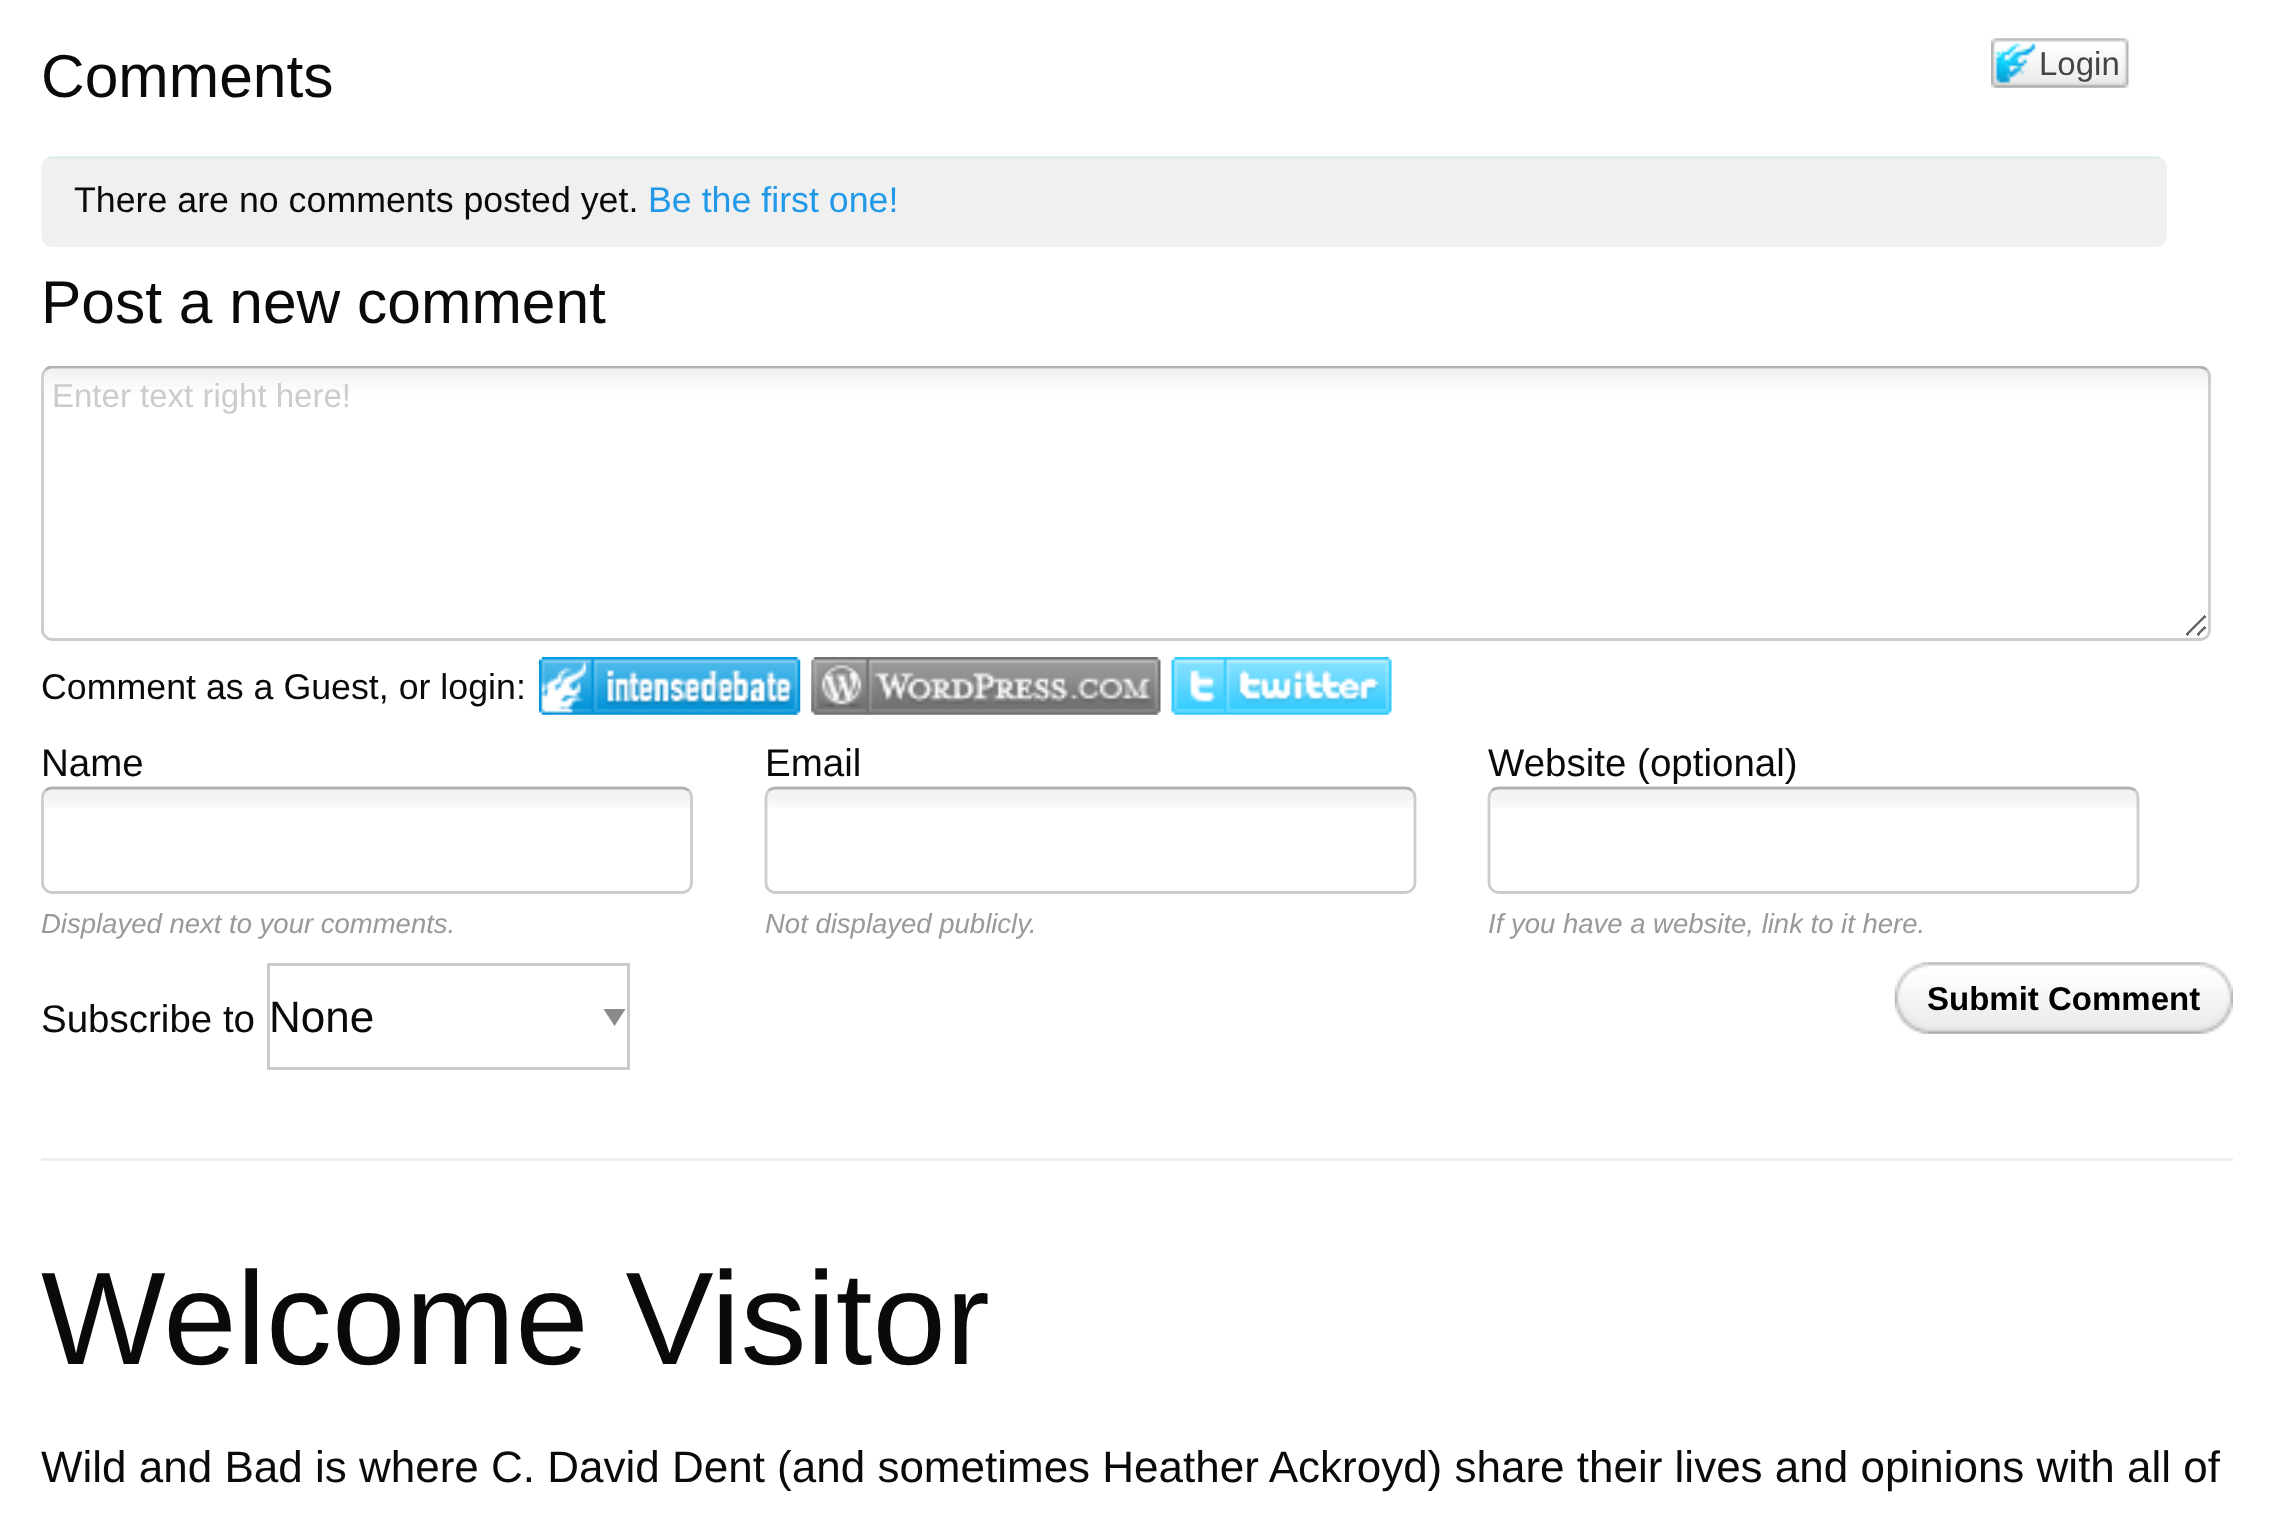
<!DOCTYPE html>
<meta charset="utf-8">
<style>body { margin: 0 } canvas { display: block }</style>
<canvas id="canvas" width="2272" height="1526"></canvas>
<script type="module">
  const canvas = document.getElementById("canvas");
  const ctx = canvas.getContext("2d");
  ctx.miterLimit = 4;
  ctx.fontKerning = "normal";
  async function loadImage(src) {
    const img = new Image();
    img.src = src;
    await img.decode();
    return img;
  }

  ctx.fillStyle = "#ffffff";
  ctx.fillRect(0, 0, 2272, 1526);
  ctx.font = "60.5px Liberation Sans";
  ctx.fillStyle = "#0a0a0a";
  ctx.fillText("Comments", 41, 97);
  ctx.drawImage(await loadImage("img1.png"), 1991, 38, 130, 50);
  ctx.font = "33px Liberation Sans";
  ctx.fillStyle = "#444444";
  ctx.fillText("Login", 2039, 75);
  ctx.drawImage(await loadImage("img2.png"), 2120, 38, 9, 50);
  ctx.drawImage(await loadImage("img3.png"), 41, 156, 2126, 91);
  ctx.font = "35.75px Liberation Sans";
  ctx.fillStyle = "#0a0a0a";
  ctx.fillText("There are no comments posted yet.", 74, 212);
  ctx.fillStyle = "#2199e8";
  ctx.fillText("Be the first one!", 648, 212);
  ctx.font = "60.5px Liberation Sans";
  ctx.fillStyle = "#0a0a0a";
  ctx.fillText("Post a new comment", 41, 323);
  ctx.drawImage(await loadImage("img4.png"), 43, 368, 2168, 268);
  ctx.save();
  ctx.beginPath();
  ctx.rect(41, 366, 2192, 286);
  ctx.clip();
  ctx.beginPath();
  ctx.moveTo(45.5, 370);
  ctx.bezierCurveTo(47, 368, 49.5, 367, 52, 367);
  ctx.lineTo(2200, 367);
  ctx.bezierCurveTo(2202.5, 367, 2205, 368, 2207, 370);
  ctx.strokeStyle = "#b0b0b0";
  ctx.lineWidth = 2.8;
  ctx.stroke();
  ctx.restore();
  ctx.beginPath();
  ctx.moveTo(2207, 370);
  ctx.bezierCurveTo(2208.5, 371.5, 2209.5, 374, 2209.5, 377);
  ctx.lineTo(2209.5, 630);
  ctx.bezierCurveTo(2209.5, 632.5, 2208.5, 635, 2207, 636.5);
  ctx.bezierCurveTo(2205, 638.5, 2202.5, 639.5, 2200, 639.5);
  ctx.lineTo(52, 639.5);
  ctx.bezierCurveTo(49.5, 639.5, 47, 638.5, 45.5, 636.5);
  ctx.bezierCurveTo(43.5, 635, 42.5, 632.5, 42.5, 630);
  ctx.lineTo(42.5, 377);
  ctx.bezierCurveTo(42.5, 374, 43.5, 371.5, 45.5, 370);
  ctx.strokeStyle = "#cccccc";
  ctx.lineWidth = 2.8;
  ctx.stroke();
  ctx.font = "33px Liberation Sans";
  ctx.fillStyle = "#cccccc";
  ctx.fillText("Enter text right here!", 52, 407);
  ctx.font = "35.75px Liberation Sans";
  ctx.fillStyle = "#0a0a0a";
  ctx.fillText("Comment as a Guest, or login:", 41, 699);
  ctx.drawImage(await loadImage("img5.png"), 539, 657, 262, 58);
  ctx.drawImage(await loadImage("img6.png"), 811, 657, 350, 58);
  ctx.drawImage(await loadImage("img7.png"), 1171, 657, 221, 58);
  ctx.font = "38.5px Liberation Sans";
  ctx.fillText("Name", 41, 776);
  ctx.fillText("Email", 765, 776);
  ctx.fillText("Website (optional)", 1488, 776);
  ctx.drawImage(await loadImage("img8.png"), 43, 788, 650, 20);
  ctx.beginPath();
  ctx.moveTo(45.5, 790.5);
  ctx.bezierCurveTo(47, 789, 49.5, 788, 52, 788);
  ctx.lineTo(682, 788);
  ctx.bezierCurveTo(684.5, 788, 687, 789, 689, 790.5);
  ctx.strokeStyle = "#b0b0b0";
  ctx.stroke();
  ctx.beginPath();
  ctx.moveTo(689, 790.5);
  ctx.bezierCurveTo(690.5, 792.5, 691.5, 795, 691.5, 797.5);
  ctx.lineTo(691.5, 883);
  ctx.bezierCurveTo(691.5, 885.5, 690.5, 888, 689, 889.5);
  ctx.bezierCurveTo(687, 891.5, 684.5, 892.5, 682, 892.5);
  ctx.lineTo(52, 892.5);
  ctx.bezierCurveTo(49.5, 892.5, 47, 891.5, 45.5, 889.5);
  ctx.bezierCurveTo(43.5, 888, 42.5, 885.5, 42.5, 883);
  ctx.lineTo(42.5, 797.5);
  ctx.bezierCurveTo(42.5, 795, 43.5, 792.5, 45.5, 790.5);
  ctx.strokeStyle = "#cccccc";
  ctx.stroke();
  ctx.font = "italic 27.5px Liberation Sans";
  ctx.fillStyle = "#999999";
  ctx.fillText("Displayed next to your comments.", 41, 933);
  ctx.drawImage(await loadImage("img9.png"), 767, 788, 649, 20);
  ctx.beginPath();
  ctx.moveTo(768.5, 790.5);
  ctx.bezierCurveTo(770.5, 789, 773, 788, 775.5, 788);
  ctx.lineTo(1405, 788);
  ctx.bezierCurveTo(1408, 788, 1410.5, 789, 1412, 790.5);
  ctx.strokeStyle = "#b0b0b0";
  ctx.stroke();
  ctx.beginPath();
  ctx.moveTo(1412, 790.5);
  ctx.bezierCurveTo(1414, 792.5, 1415, 795, 1415, 797.5);
  ctx.lineTo(1415, 883);
  ctx.bezierCurveTo(1415, 885.5, 1414, 888, 1412, 889.5);
  ctx.bezierCurveTo(1410.5, 891.5, 1408, 892.5, 1405, 892.5);
  ctx.lineTo(775.5, 892.5);
  ctx.bezierCurveTo(773, 892.5, 770.5, 891.5, 768.5, 889.5);
  ctx.bezierCurveTo(767, 888, 766, 885.5, 766, 883);
  ctx.lineTo(766, 797.5);
  ctx.bezierCurveTo(766, 795, 767, 792.5, 768.5, 790.5);
  ctx.strokeStyle = "#cccccc";
  ctx.stroke();
  ctx.fillText("Not displayed publicly.", 765, 933);
  ctx.drawImage(await loadImage("img10.png"), 1490, 788, 649, 20);
  ctx.beginPath();
  ctx.moveTo(1492, 790.5);
  ctx.bezierCurveTo(1493.5, 789, 1496, 788, 1499, 788);
  ctx.lineTo(2128.5, 788);
  ctx.bezierCurveTo(2131, 788, 2133.5, 789, 2135.5, 790.5);
  ctx.strokeStyle = "#b0b0b0";
  ctx.stroke();
  ctx.beginPath();
  ctx.moveTo(2135.5, 790.5);
  ctx.bezierCurveTo(2137, 792.5, 2138, 795, 2138, 797.5);
  ctx.lineTo(2138, 883);
  ctx.bezierCurveTo(2138, 885.5, 2137, 888, 2135.5, 889.5);
  ctx.bezierCurveTo(2133.5, 891.5, 2131, 892.5, 2128.5, 892.5);
  ctx.lineTo(1499, 892.5);
  ctx.bezierCurveTo(1496, 892.5, 1493.5, 891.5, 1492, 889.5);
  ctx.bezierCurveTo(1490, 888, 1489, 885.5, 1489, 883);
  ctx.lineTo(1489, 797.5);
  ctx.bezierCurveTo(1489, 795, 1490, 792.5, 1492, 790.5);
  ctx.strokeStyle = "#cccccc";
  ctx.stroke();
  ctx.fillText("If you have a website, link to it here.", 1488, 933);
  ctx.drawImage(await loadImage("img11.png"), 1894, 962, 34, 72);
  ctx.drawImage(await loadImage("img12.png"), 1927, 962, 306, 72);
  ctx.font = "bold 33px Liberation Sans";
  ctx.fillStyle = "#000000";
  ctx.fillText("Submit Comment", 1927, 1010);
  ctx.font = "38.5px Liberation Sans";
  ctx.fillStyle = "#0a0a0a";
  ctx.fillText("Subscribe to", 41, 1032);
  ctx.fillStyle = "#8a8a8a";
  ctx.beginPath();
  ctx.moveTo(603.5, 1009);
  ctx.lineTo(625.5, 1009);
  ctx.lineTo(614.5, 1026);
  ctx.closePath();
  ctx.fill();
  ctx.strokeStyle = "#cacaca";
  ctx.lineWidth = 3;
  ctx.strokeRect(268.5, 964.5, 360, 104);
  ctx.font = "44px Liberation Sans";
  ctx.fillStyle = "#0a0a0a";
  ctx.fillText("None", 269, 1032);
  ctx.fillStyle = "#eeeeee";
  ctx.fillRect(41, 1158, 2192, 3);
  ctx.font = "132px Liberation Sans";
  ctx.fillStyle = "#0a0a0a";
  ctx.fillText("Welcome Visitor", 41, 1364);
  ctx.font = "44px Liberation Sans";
  ctx.fillText("Wild and Bad is where C. David Dent (and sometimes Heather Ackroyd) share their lives and opinions with all of", 41, 1482);
</script>
